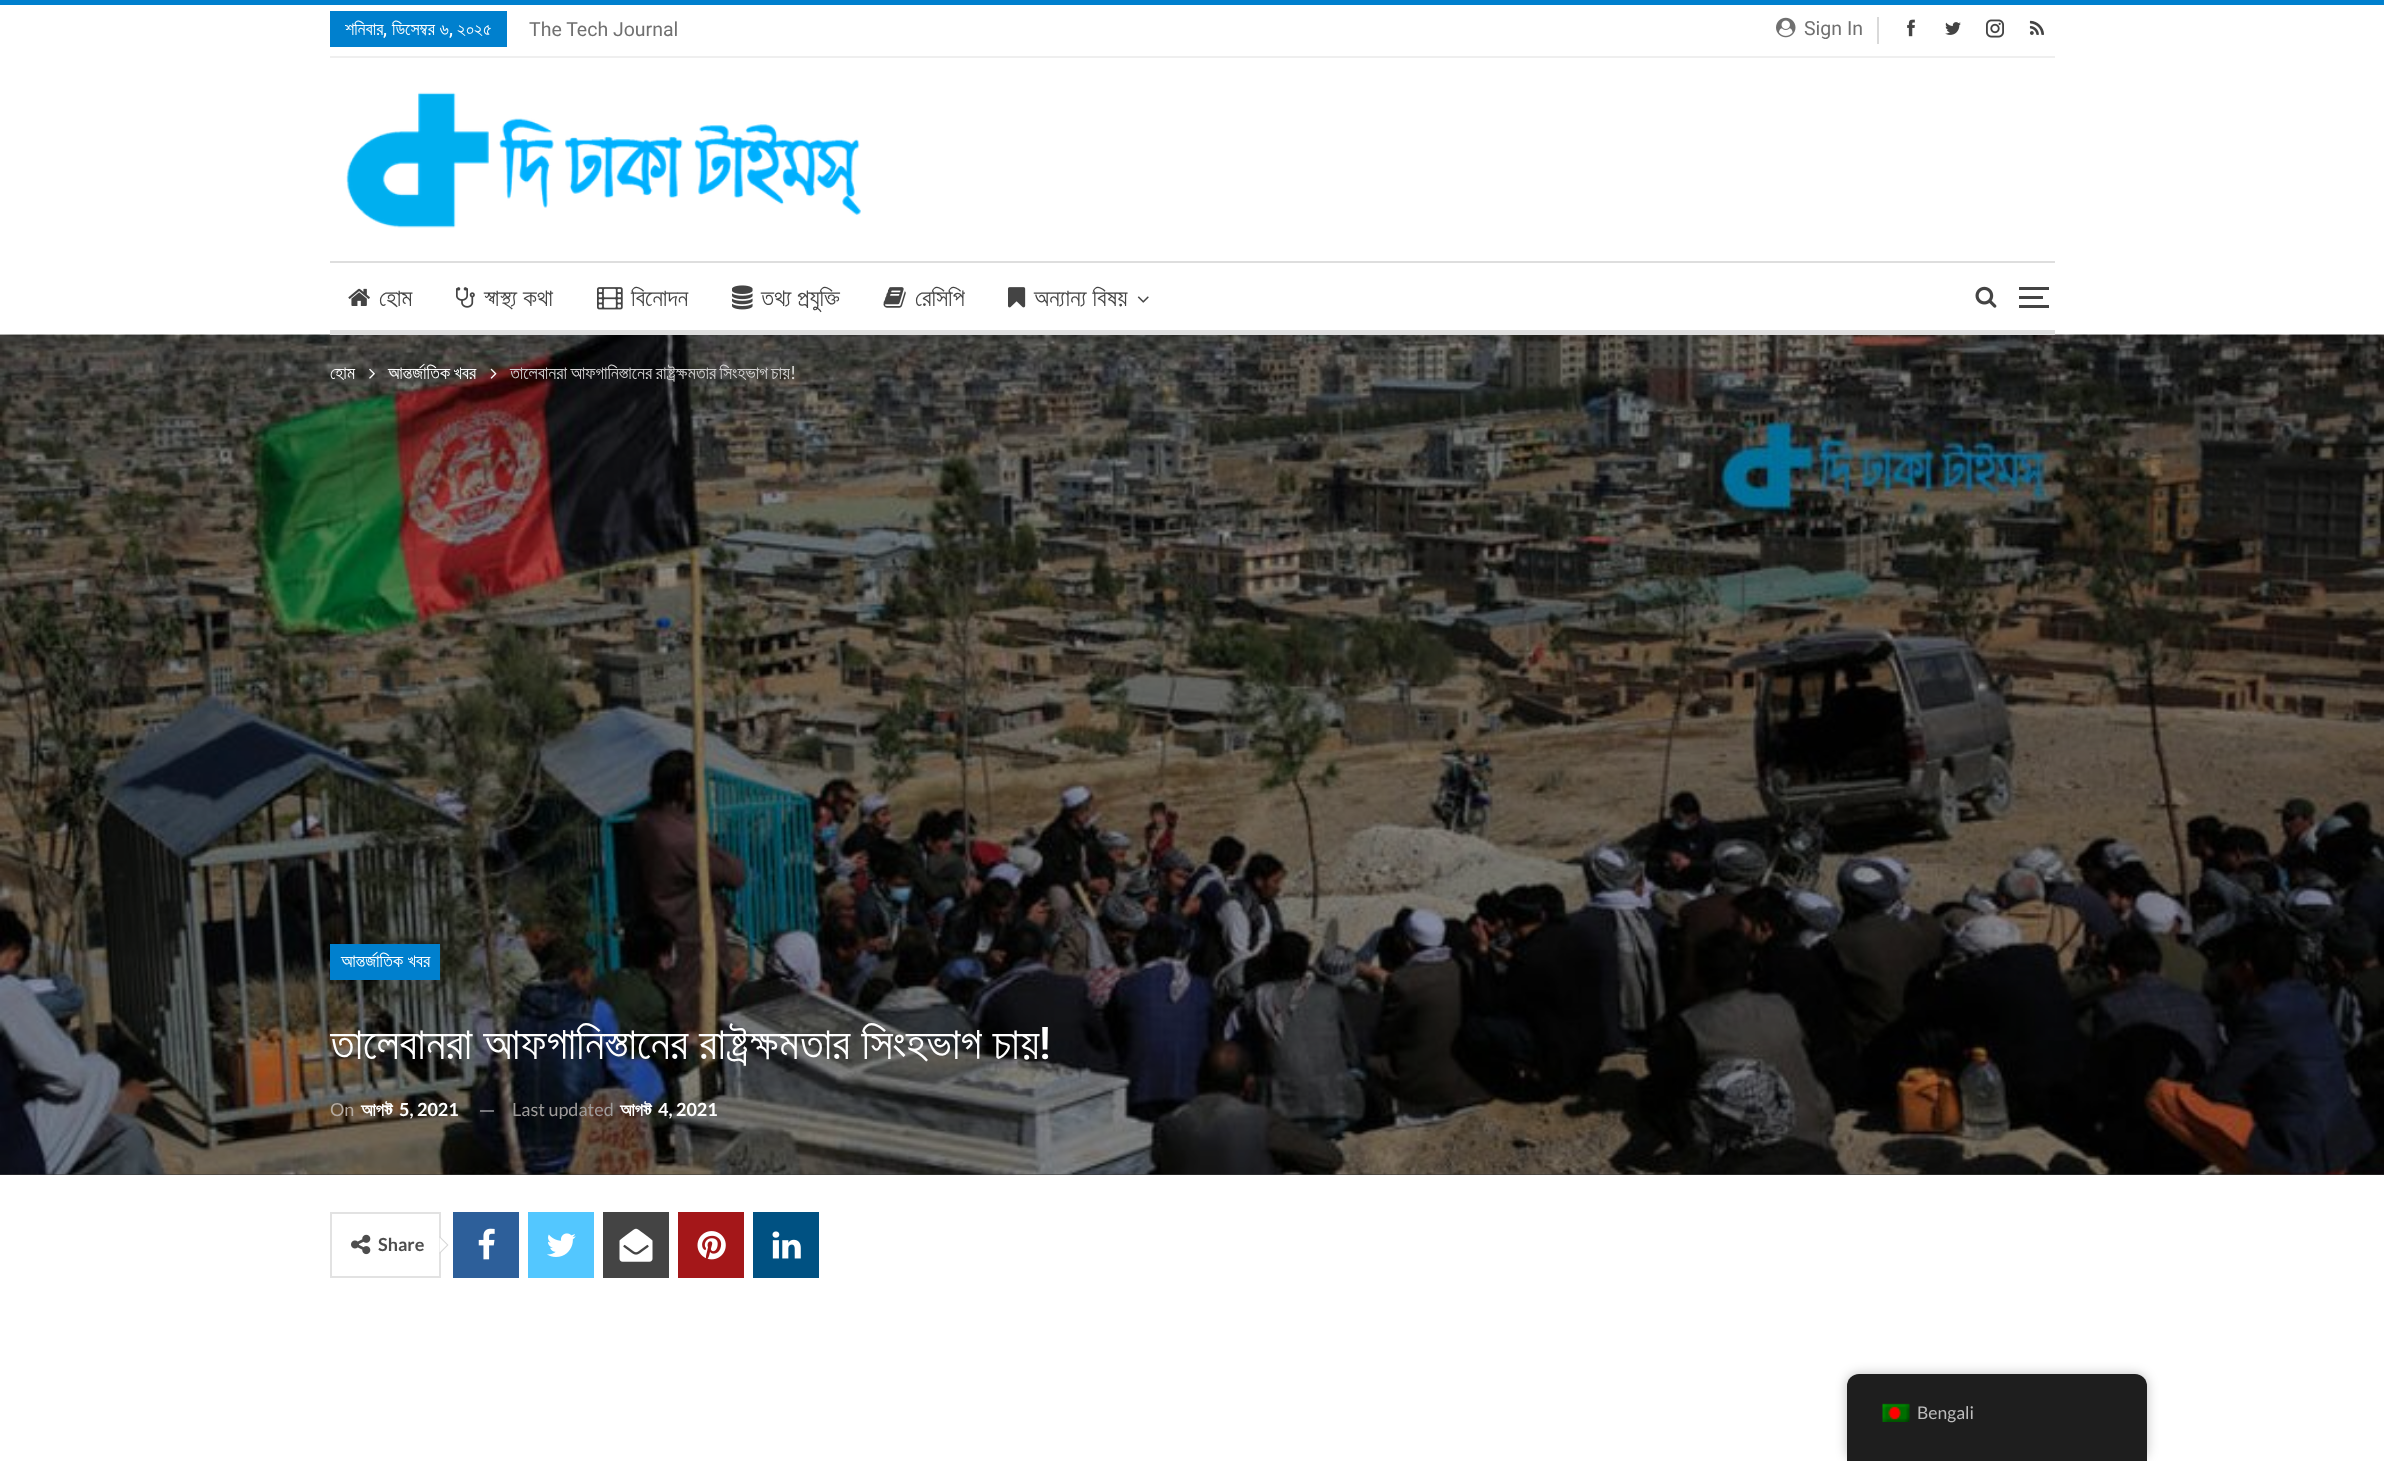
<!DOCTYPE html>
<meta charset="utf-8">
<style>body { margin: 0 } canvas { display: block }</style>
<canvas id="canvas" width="2384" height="1461"></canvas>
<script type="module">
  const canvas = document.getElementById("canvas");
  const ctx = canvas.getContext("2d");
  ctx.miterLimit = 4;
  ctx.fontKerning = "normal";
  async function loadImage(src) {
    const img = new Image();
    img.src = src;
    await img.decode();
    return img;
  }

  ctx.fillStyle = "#ffffff";
  ctx.fillRect(0, 0, 2384, 1461);
  ctx.fillStyle = "#0080ce";
  ctx.fillRect(0, 0, 2384, 5);
  ctx.fillStyle = "#efefef";
  ctx.fillRect(330, 56, 1725, 2);
  ctx.fillStyle = "#0080ce";
  ctx.fillRect(330, 11, 177, 36);
  ctx.font = "18px FreeSans";
  ctx.fillStyle = "#ffffff";
  ctx.fillText("শনিবার", 345, 35);
  ctx.font = "500 18px Roboto";
  ctx.fillText(",", 383, 35);
  ctx.font = "18px FreeSans";
  ctx.fillText("ডিসেম্বর ৬", 392, 35);
  ctx.font = "500 18px Roboto";
  ctx.fillText(",", 449, 35);
  ctx.font = "18px FreeSans";
  ctx.fillText("২০২৫", 457, 35);
  ctx.font = "19.5px Roboto";
  ctx.fillStyle = "#707070";
  ctx.fillText("The Tech Journal", 529, 36);
  ctx.drawImage(await loadImage("img1.png"), 1776, 17, 20, 21);
  ctx.fillText("Sign In", 1804, 35);
  ctx.fillStyle = "#d9d9d9";
  ctx.fillRect(1877, 17, 2, 27);
  ctx.drawImage(await loadImage("img2.png"), 1907, 19, 8, 18);
  ctx.drawImage(await loadImage("img3.png"), 1945, 22, 16, 13);
  ctx.drawImage(await loadImage("img4.png"), 1986, 19, 18, 19);
  ctx.drawImage(await loadImage("img5.png"), 2029, 20, 15, 15);
  ctx.drawImage(await loadImage("img6.png"), 346, 92, 515, 136);
  ctx.fillStyle = "#dedede";
  ctx.fillRect(330, 261, 1725, 2);
  ctx.fillStyle = "#383838";
  ctx.fillRect(0, 1174, 2384, 1);
  ctx.drawImage(await loadImage("img15.png"), 0, 334, 2384, 841);
  ctx.fillStyle = "#dedede";
  ctx.fillRect(330, 330, 1725, 5);
  ctx.drawImage(await loadImage("img7.png"), 348, 288, 22, 18);
  ctx.font = "24px FreeSans";
  ctx.fillStyle = "#444444";
  ctx.fillText("হোম", 379, 306);
  ctx.drawImage(await loadImage("img8.png"), 456, 287, 19, 21);
  ctx.fillText("স্বাস্থ্য কথা", 484, 306);
  ctx.drawImage(await loadImage("img9.png"), 597, 287, 26, 23);
  ctx.fillText("বিনোদন", 631, 306);
  ctx.drawImage(await loadImage("img10.png"), 732, 285, 21, 25);
  ctx.fillText("তথ্য প্রযুক্তি", 761, 306);
  ctx.drawImage(await loadImage("img11.png"), 883, 287, 23, 21);
  ctx.fillText("রেসিপি", 915, 306);
  ctx.drawImage(await loadImage("img12.png"), 1008, 287, 18, 21);
  ctx.fillText("অন্যান্য বিষয়", 1034, 306);
  ctx.drawImage(await loadImage("img13.png"), 1137, 296, 12, 7);
  ctx.drawImage(await loadImage("img14.png"), 1975, 286, 22, 22);
  ctx.fillRect(2019, 296, 24, 3);
  ctx.fillRect(2019, 287, 30, 3);
  ctx.fillRect(2019, 305, 30, 3);
  ctx.font = "18px FreeSans";
  ctx.fillStyle = "#ffffff";
  ctx.fillText("হোম", 330, 379);
  ctx.drawImage(await loadImage("img16.png"), 369, 368, 6, 11);
  ctx.wordSpacing = "-1px";
  ctx.fillText("আন্তর্জাতিক খবর", 388, 379);
  ctx.drawImage(await loadImage("img17.png"), 490, 368, 7, 11);
  ctx.fillStyle = "#d4d3d3";
  ctx.fillText("তালেবানরা আফগানিস্তানের রাষ্ট্রক্ষমতার সিংহভাগ চায়", 510, 379);
  ctx.wordSpacing = "0px";
  ctx.font = "18px Lato";
  ctx.fillStyle = "#dbdbd9";
  ctx.fillText("!", 790, 379);
  ctx.fillStyle = "#0080ce";
  ctx.fillRect(330, 944, 110, 36);
  ctx.font = "18px FreeSans";
  ctx.fillStyle = "#ffffff";
  ctx.fillText("আন্তর্জাতিক খবর", 341, 967);
  ctx.save();
  ctx.beginPath();
  ctx.rect(330, 335, 1725, 840);
  ctx.clip();
  ctx.font = "45px FreeSans";
  ctx.fillText("তালেবানরা আফগানিস্তানের রাষ্ট্রক্ষমতার সিংহভাগ চায়", 330, 1059);
  ctx.restore();
  ctx.font = "500 45px Roboto";
  ctx.fillText("!", 1039, 1059);
  ctx.font = "18px Lato";
  ctx.fillStyle = "#b4aba2";
  ctx.fillText("On", 330, 1116);
  ctx.font = "bold 18px FreeSans";
  ctx.fillStyle = "#ffffff";
  ctx.fillText("আগস্ট", 361, 1116);
  ctx.font = "bold 18px Lato";
  ctx.fillText("5, 2021", 399, 1116);
  ctx.fillStyle = "rgba(255, 255, 255, 0.43)";
  ctx.fillRect(480, 1110, 14, 2);
  ctx.font = "18px Lato";
  ctx.fillStyle = "#9e9b9a";
  ctx.fillText("Last updated", 512, 1116);
  ctx.font = "bold 18px FreeSans";
  ctx.fillStyle = "#ffffff";
  ctx.fillText("আগস্ট", 620, 1116);
  ctx.font = "bold 18px Lato";
  ctx.fillText("4, 2021", 658, 1116);
  ctx.strokeStyle = "#e2e2e2";
  ctx.lineWidth = 2;
  ctx.strokeRect(331, 1213, 109, 64);
  ctx.drawImage(await loadImage("img18.png"), 351, 1234, 20, 21);
  ctx.fillStyle = "#4d4d4d";
  ctx.fillText("Share", 378, 1251);
  ctx.fillStyle = "#d7d7d7";
  ctx.beginPath();
  ctx.moveTo(439.5, 1254);
  ctx.lineTo(439.5, 1236);
  ctx.lineTo(448.5, 1245);
  ctx.closePath();
  ctx.fill();
  ctx.fillStyle = "#ffffff";
  ctx.beginPath();
  ctx.moveTo(439.5, 1252.5);
  ctx.lineTo(439.5, 1237.5);
  ctx.lineTo(447, 1245);
  ctx.closePath();
  ctx.fill();
  ctx.fillStyle = "#2d5f9a";
  ctx.fillRect(453, 1212, 66, 66);
  ctx.drawImage(await loadImage("img19.png"), 478, 1228, 17, 32);
  ctx.fillStyle = "#53c7ff";
  ctx.fillRect(528, 1212, 66, 66);
  ctx.drawImage(await loadImage("img20.png"), 547, 1233, 29, 24);
  ctx.fillStyle = "#444444";
  ctx.fillRect(603, 1212, 66, 66);
  ctx.drawImage(await loadImage("img21.png"), 619, 1228, 34, 34);
  ctx.fillStyle = "#a41719";
  ctx.fillRect(678, 1212, 66, 66);
  ctx.drawImage(await loadImage("img22.png"), 697, 1231, 29, 29);
  ctx.fillStyle = "#005182";
  ctx.fillRect(753, 1212, 66, 66);
  ctx.drawImage(await loadImage("img23.png"), 772, 1231, 29, 28);
  ctx.fillStyle = "rgba(0, 0, 0, 0.25)";
  ctx.filter = "blur(6px)";
  ctx.beginPath();
  ctx.roundRect(1847, 1374, 300, 87, 12);
  ctx.fill();
  ctx.filter = "none";
  ctx.fillStyle = "#1e1e1e";
  ctx.beginPath();
  ctx.roundRect(1847, 1374, 300, 87, [12, 12, 0, 0]);
  ctx.fill();
  ctx.drawImage(await loadImage("img24.png"), 1882, 1403, 28, 19);
  ctx.font = "17.5px Lato";
  ctx.fillStyle = "#bdbdbd";
  ctx.fillText("Bengali", 1917, 1419);
</script>
